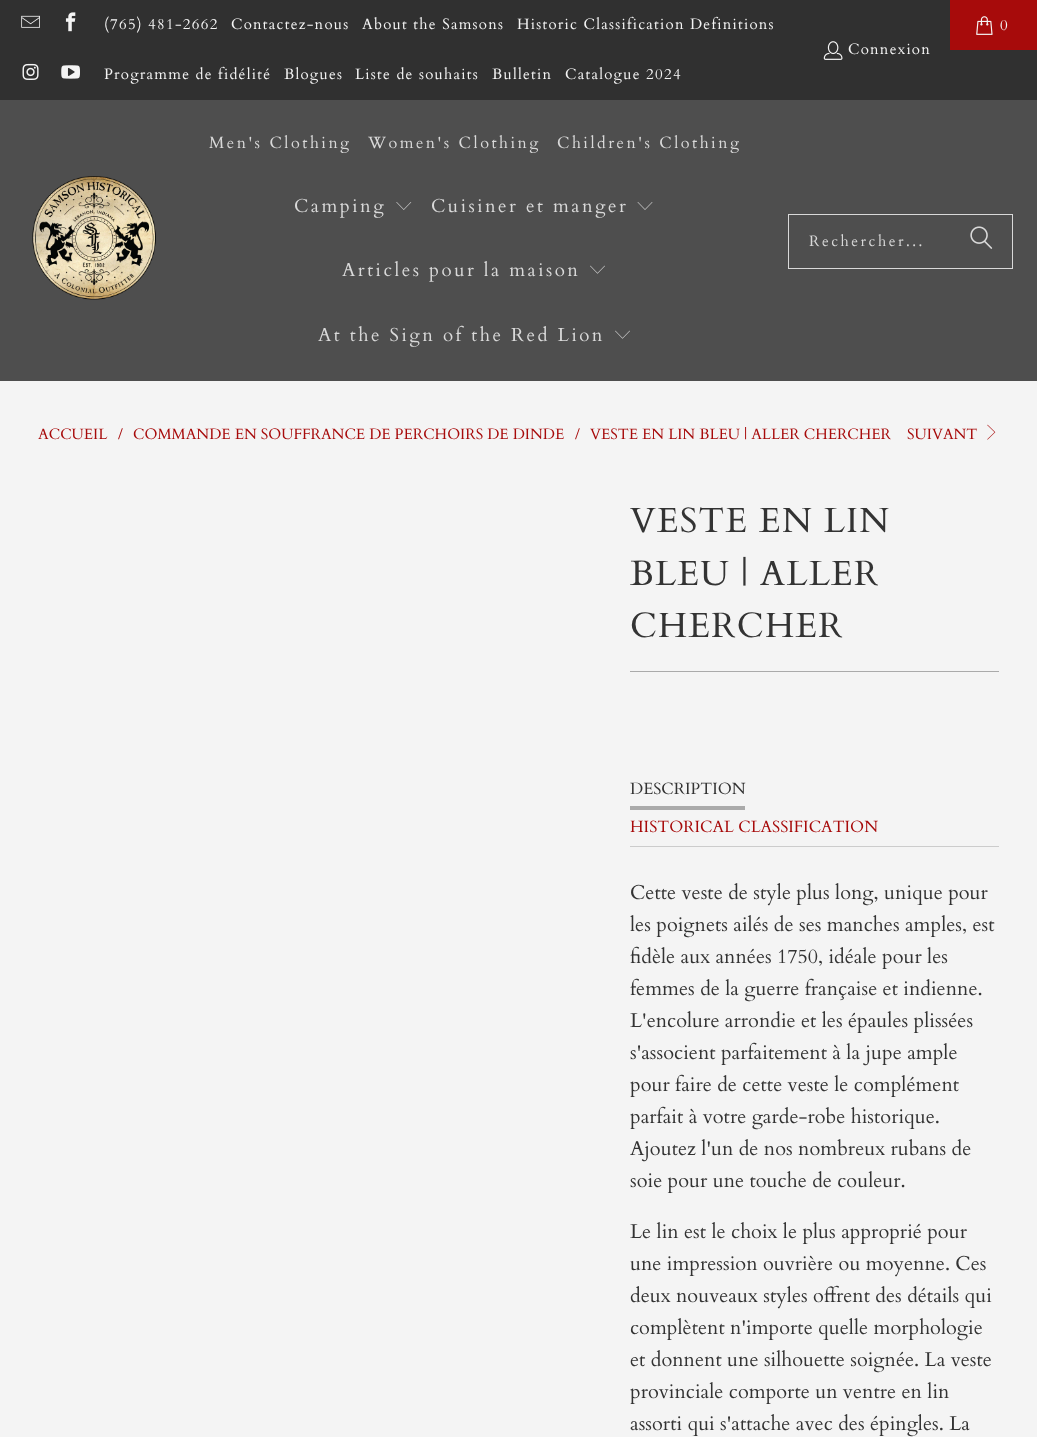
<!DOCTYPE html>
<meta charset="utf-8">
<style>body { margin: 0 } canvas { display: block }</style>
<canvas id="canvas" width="1037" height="1437"></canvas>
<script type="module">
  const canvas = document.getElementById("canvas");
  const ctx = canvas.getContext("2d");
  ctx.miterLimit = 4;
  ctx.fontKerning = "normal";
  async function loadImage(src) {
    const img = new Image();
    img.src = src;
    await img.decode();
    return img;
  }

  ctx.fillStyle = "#f4f4f4";
  ctx.fillRect(0, 0, 1037, 1437);
  ctx.fillStyle = "#303030";
  ctx.fillRect(0, 0, 1037, 100);
  ctx.drawImage(await loadImage("img1.png"), 21, 15, 19, 13);
  ctx.drawImage(await loadImage("img2.png"), 65, 12, 11, 20);
  ctx.drawImage(await loadImage("img3.png"), 22, 63, 17, 17);
  ctx.drawImage(await loadImage("img4.png"), 61, 65, 19, 14);
  ctx.letterSpacing = "1.25px";
  ctx.font = "15px Cardo";
  ctx.fillStyle = "#f4f4f4";
  ctx.fillText("(765) 481-2662", 104, 29);
  ctx.fillText("Contactez-nous", 231, 29);
  ctx.fillText("About the Samsons", 362, 29);
  ctx.fillText("Historic Classification Definitions", 517, 29);
  ctx.fillText("Programme de fidélité", 104, 79);
  ctx.fillText("Blogues", 284, 79);
  ctx.fillText("Liste de souhaits", 355, 79);
  ctx.fillText("Bulletin", 492, 79);
  ctx.fillText("Catalogue 2024", 565, 79);
  ctx.fillStyle = "#a70b0b";
  ctx.fillRect(950, 0, 87, 50);
  ctx.drawImage(await loadImage("img5.png"), 976, 16, 17, 19);
  ctx.fillStyle = "#f4f4f4";
  ctx.fillText("0", 1000, 30);
  ctx.drawImage(await loadImage("img6.png"), 823, 41, 20, 19);
  ctx.fillText("Connexion", 848, 54);
  ctx.fillStyle = "#4e4e4e";
  ctx.fillRect(0, 100, 1037, 281);
  ctx.drawImage(await loadImage("img7.png"), 32, 176, 124, 124);
  ctx.letterSpacing = "2.5px";
  ctx.font = "16.25px Cardo";
  ctx.fillStyle = "#d9d9d9";
  ctx.fillText("Men's Clothing", 209, 148);
  ctx.fillText("Women's Clothing", 368, 148);
  ctx.fillText("Children's Clothing", 557, 148);
  ctx.font = "18.75px Cardo";
  ctx.fillText("Camping", 294, 212);
  ctx.drawImage(await loadImage("img8.png"), 396, 202, 16, 8);
  ctx.fillText("Cuisiner et manger", 431, 212);
  ctx.drawImage(await loadImage("img9.png"), 637, 202, 16, 8);
  ctx.fillText("Articles pour la maison", 342, 276);
  ctx.drawImage(await loadImage("img10.png"), 590, 265, 15, 9);
  ctx.fillText("At the Sign of the Red Lion", 318, 341);
  ctx.drawImage(await loadImage("img10.png"), 615, 330, 15, 9);
  ctx.strokeStyle = "#d9d9d9";
  ctx.strokeRect(788.5, 214.5, 224, 54);
  ctx.font = "15px Cardo";
  ctx.fillText("Rechercher...", 809, 246);
  ctx.drawImage(await loadImage("img11.png"), 970, 226, 23, 23);
  ctx.letterSpacing = "0px";
  ctx.fillStyle = "#a70b0b";
  ctx.fillText("ACCUEIL", 38, 439);
  ctx.fillText("/", 118, 439);
  ctx.fillText("COMMANDE EN SOUFFRANCE DE PERCHOIRS DE DINDE", 133, 439);
  ctx.fillText("/", 575, 439);
  ctx.fillText("VESTE EN LIN BLEU | ALLER CHERCHER", 590, 439);
  ctx.fillText("SUIVANT", 907, 439);
  ctx.drawImage(await loadImage("img12.png"), 987, 424, 9, 16);
  ctx.letterSpacing = "1.25px";
  ctx.font = "35px Cardo";
  ctx.fillStyle = "#333333";
  ctx.fillText("VESTE EN LIN", 630, 532);
  ctx.fillText("BLEU | ALLER", 630, 585);
  ctx.fillText("CHERCHER", 630, 637);
  ctx.fillStyle = "#aaaaaa";
  ctx.fillRect(630, 671, 369, 1);
  ctx.fillStyle = "#cccccc";
  ctx.fillRect(630, 846, 369, 1);
  ctx.fillStyle = "#aaaaaa";
  ctx.fillRect(630, 806, 115, 4);
  ctx.letterSpacing = "0px";
  ctx.font = "16.25px Cardo";
  ctx.fillStyle = "#333333";
  ctx.fillText("DESCRIPTION", 630, 794);
  ctx.fillStyle = "#a70b0b";
  ctx.fillText("HISTORICAL CLASSIFICATION", 630, 832);
  ctx.font = "20px Cardo";
  ctx.fillStyle = "#333333";
  ctx.fillText("Cette veste de style plus long, unique pour", 630, 899);
  ctx.fillText("les poignets ailés de ses manches amples, est", 630, 931);
  ctx.fillText("fidèle aux années 1750, idéale pour les", 630, 963);
  ctx.fillText("femmes de la guerre française et indienne.", 630, 995);
  ctx.fillText("L'encolure arrondie et les épaules plissées", 630, 1027);
  ctx.fillText("s'associent parfaitement à la jupe ample", 630, 1059);
  ctx.fillText("pour faire de cette veste le complément", 630, 1091);
  ctx.fillText("parfait à votre garde-robe historique.", 630, 1123);
  ctx.fillText("Ajoutez l'un de nos nombreux rubans de", 630, 1155);
  ctx.fillText("soie pour une touche de couleur.", 630, 1187);
  ctx.fillText("Le lin est le choix le plus approprié pour", 630, 1238);
  ctx.fillText("une impression ouvrière ou moyenne. Ces", 630, 1270);
  ctx.fillText("deux nouveaux styles offrent des détails qui", 630, 1302);
  ctx.fillText("complètent n'importe quelle morphologie", 630, 1334);
  ctx.fillText("et donnent une silhouette soignée. La veste", 630, 1366);
  ctx.fillText("provinciale comporte un ventre en lin", 630, 1398);
  ctx.fillText("assorti qui s'attache avec des épingles. La", 630, 1430);
</script>
